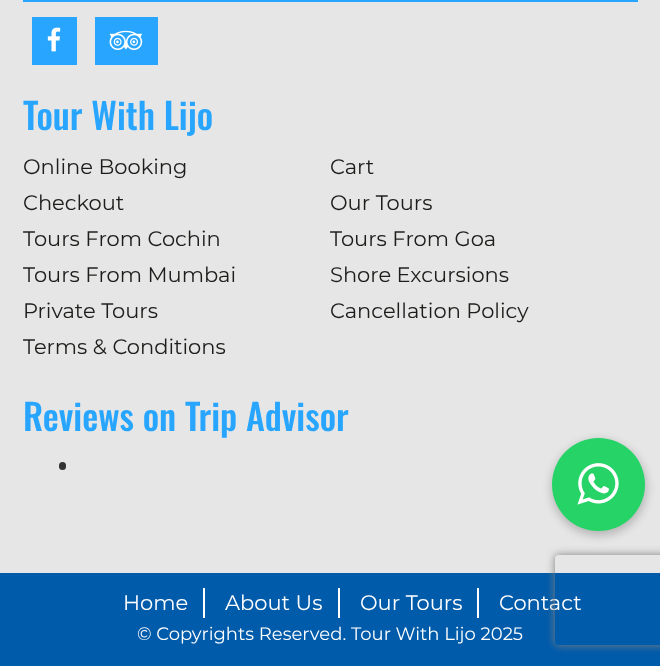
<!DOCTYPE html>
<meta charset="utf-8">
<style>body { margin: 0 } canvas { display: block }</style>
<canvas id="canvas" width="660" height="666"></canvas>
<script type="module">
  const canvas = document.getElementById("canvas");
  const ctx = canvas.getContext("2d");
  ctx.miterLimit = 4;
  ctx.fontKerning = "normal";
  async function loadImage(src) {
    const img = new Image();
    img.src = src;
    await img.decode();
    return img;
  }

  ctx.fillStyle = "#e6e6e6";
  ctx.fillRect(0, 0, 660, 666);
  ctx.fillStyle = "#28a6ff";
  ctx.fillRect(23, 0, 615, 2);
  ctx.fillRect(32, 17, 45, 48);
  ctx.drawImage(await loadImage("img1.png"), 47, 27, 14, 25);
  ctx.fillRect(95, 17, 63, 48);
  ctx.drawImage(await loadImage("img2.png"), 109, 30, 34, 20);
  ctx.font = "500 36px Oswald";
  ctx.fillText("Tour With Lijo", 23, 130);
  ctx.font = "21px Montserrat";
  ctx.fillStyle = "#1d1d1b";
  ctx.fillText("Online Booking", 23, 174);
  ctx.fillText("Cart", 330, 174);
  ctx.fillText("Checkout", 23, 210);
  ctx.fillText("Our Tours", 330, 210);
  ctx.fillText("Tours From Cochin", 23, 246);
  ctx.fillText("Tours From Goa", 330, 246);
  ctx.fillText("Tours From Mumbai", 23, 282);
  ctx.fillText("Shore Excursions", 330, 282);
  ctx.fillText("Private Tours", 23, 318);
  ctx.fillText("Cancellation Policy", 330, 318);
  ctx.fillText("Terms & Conditions", 23, 354);
  ctx.font = "500 36px Oswald";
  ctx.fillStyle = "#28a6ff";
  ctx.fillText("Reviews on Trip Advisor", 23, 431);
  ctx.fillStyle = "#333333";
  ctx.beginPath();
  ctx.roundRect(59, 462, 7, 8, 3.5);
  ctx.fill();
  ctx.fillStyle = "rgba(0, 0, 0, 0.2)";
  ctx.filter = "blur(4.5px)";
  ctx.beginPath();
  ctx.roundRect(551, 440, 96, 96, 48);
  ctx.fill();
  ctx.filter = "none";
  ctx.fillStyle = "#25d366";
  ctx.beginPath();
  ctx.arc(598.5, 484.5, 46.5, 0, Math.PI * 2);
  ctx.fill();
  ctx.drawImage(await loadImage("img3.png"), 577, 463, 42, 42);
  ctx.fillStyle = "#005baa";
  ctx.fillRect(0, 573, 660, 93);
  ctx.fillStyle = "#ffffff";
  ctx.fillRect(203, 588, 2, 30);
  ctx.font = "21px Montserrat";
  ctx.fillText("Home", 123, 610);
  ctx.fillRect(338, 588, 2, 30);
  ctx.fillText("About Us", 225, 610);
  ctx.fillRect(477, 588, 2, 30);
  ctx.fillText("Our Tours", 360, 610);
  ctx.fillText("Contact", 499, 610);
  ctx.font = "18px Montserrat";
  ctx.fillText("© Copyrights Reserved. Tour With Lijo 2025", 137, 640);
  ctx.save();
  ctx.beginPath();
  ctx.moveTo(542, 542);
  ctx.lineTo(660, 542);
  ctx.lineTo(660, 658);
  ctx.lineTo(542, 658);
  ctx.closePath();
  ctx.moveTo(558, 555);
  ctx.lineTo(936, 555);
  ctx.bezierCurveTo(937.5, 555, 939, 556.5, 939, 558);
  ctx.lineTo(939, 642);
  ctx.bezierCurveTo(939, 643.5, 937.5, 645, 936, 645);
  ctx.lineTo(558, 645);
  ctx.bezierCurveTo(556.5, 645, 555, 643.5, 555, 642);
  ctx.lineTo(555, 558);
  ctx.bezierCurveTo(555, 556.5, 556.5, 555, 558, 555);
  ctx.closePath();
  ctx.clip("evenodd");
  ctx.fillStyle = "#808080";
  ctx.filter = "blur(4px)";
  ctx.beginPath();
  ctx.roundRect(555, 555, 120, 90, 3);
  ctx.fill();
  ctx.filter = "none";
  ctx.restore();
</script>
